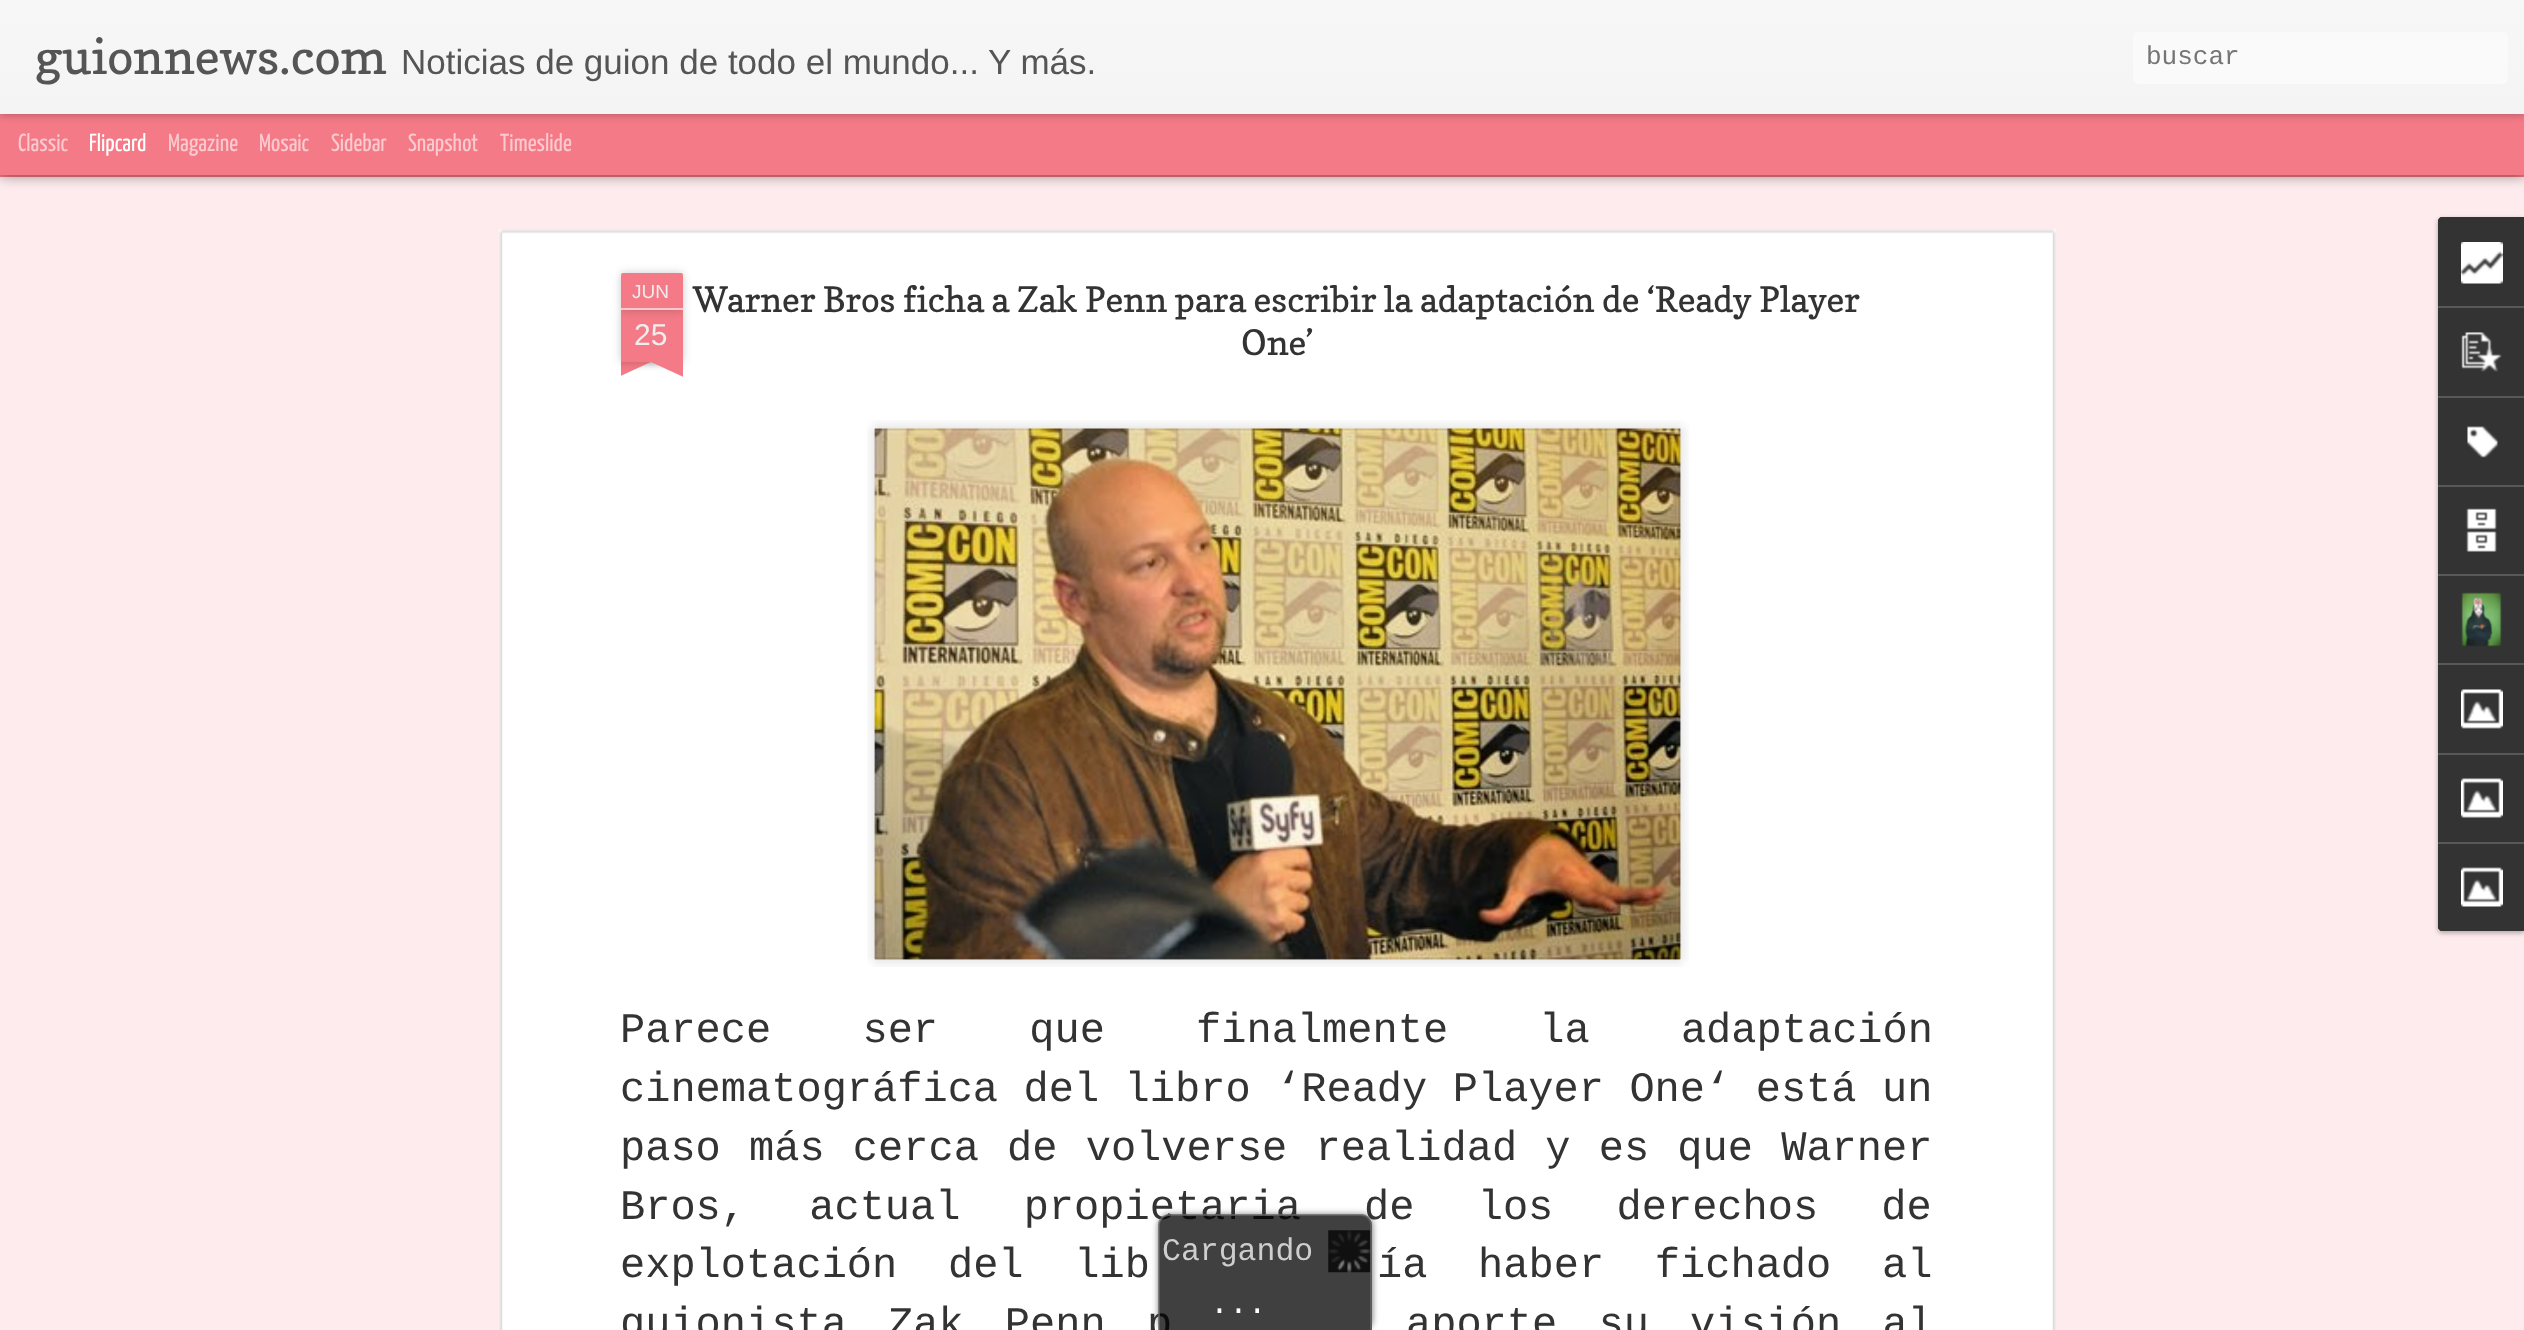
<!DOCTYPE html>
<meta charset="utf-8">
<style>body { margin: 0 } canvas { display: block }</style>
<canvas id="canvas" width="2524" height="1330"></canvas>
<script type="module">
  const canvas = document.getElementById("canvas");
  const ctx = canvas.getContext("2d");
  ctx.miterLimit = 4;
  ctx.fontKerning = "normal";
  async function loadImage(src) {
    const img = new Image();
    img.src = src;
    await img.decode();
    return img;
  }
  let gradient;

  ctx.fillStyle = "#f37a86";
  ctx.fillRect(0, 0, 2524, 1330);
  ctx.fillStyle = "#fdebed";
  ctx.fillRect(0, 177, 2524, 1153);
  ctx.fillStyle = "rgba(0, 0, 0, 0.5)";
  ctx.filter = "blur(7px)";
  ctx.beginPath();
  ctx.rect(0, 114, 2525, 61);
  ctx.fill();
  ctx.filter = "none";
  ctx.fillStyle = "#f37a86";
  ctx.fillRect(0, 114, 2524, 61);
  ctx.fillStyle = "rgba(0, 0, 0, 0.3)";
  ctx.filter = "blur(4.5px)";
  ctx.beginPath();
  ctx.rect(0, 0, 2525, 114);
  ctx.fill();
  ctx.filter = "none";
  gradient = ctx.createLinearGradient(0, 0, 0, 114);
  gradient.addColorStop(0, "#f7f7f7");
  gradient.addColorStop(1, "#f4f4f4");
  ctx.fillStyle = gradient;
  ctx.fillRect(0, 0, 2524, 114);
  ctx.font = "49px Copse";
  ctx.fillStyle = "#555555";
  ctx.fillText("guionnews.com", 35, 74);
  ctx.font = "35px Liberation Sans";
  ctx.fillText("Noticias de guion de todo el mundo... Y más.", 401, 74);
  ctx.fillStyle = "#fafafa";
  ctx.beginPath();
  ctx.roundRect(2133, 32, 375, 52, 5);
  ctx.fill();
  ctx.font = "26px Liberation Mono";
  ctx.fillStyle = "#757575";
  ctx.fillText("buscar", 2146, 64);
  ctx.font = "200 24.5px Yanone Kaffeesatz";
  ctx.fillStyle = "#facacf";
  ctx.fillText("Classic", 18, 151);
  ctx.fillStyle = "#ffffff";
  ctx.fillText("Flipcard", 89, 151);
  ctx.fillStyle = "#facacf";
  ctx.fillText("Magazine", 168, 151);
  ctx.fillText("Mosaic", 259, 151);
  ctx.fillText("Sidebar", 331, 151);
  ctx.fillText("Snapshot", 408, 151);
  ctx.fillText("Timeslide", 500, 151);
  ctx.fillStyle = "#ffffff";
  ctx.fillRect(499, 229, 1557, 1101);
  ctx.drawImage(await loadImage("img1.png"), 499, 229, 1557, 1101);
  ctx.fillStyle = "rgba(0, 0, 0, 0.2)";
  ctx.filter = "blur(4.5px)";
  ctx.beginPath();
  ctx.rect(621, 310, 62, 52);
  ctx.fill();
  ctx.filter = "none";
  ctx.fillStyle = "#f37a86";
  ctx.fillRect(621, 310, 62, 52);
  ctx.fillStyle = "rgba(0, 0, 0, 0.2)";
  ctx.filter = "blur(4.5px)";
  ctx.beginPath();
  ctx.roundRect(621, 273, 62, 37, 2);
  ctx.fill();
  ctx.filter = "none";
  ctx.fillStyle = "#f37a86";
  ctx.beginPath();
  ctx.roundRect(621, 273, 62, 37, [2, 2, 0, 0]);
  ctx.fill();
  ctx.fillStyle = "#facacf";
  ctx.fillRect(621, 308, 62, 2);
  ctx.font = "19px Liberation Sans";
  ctx.fillStyle = "#eeeeee";
  ctx.fillText("JUN", 632, 298);
  ctx.font = "30px Liberation Sans";
  ctx.fillText("25", 634, 345);
  ctx.save();
  ctx.beginPath();
  ctx.rect(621, 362, 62, 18);
  ctx.clip();
  ctx.fillStyle = "rgba(0, 0, 0, 0.2)";
  ctx.filter = "blur(4.5px)";
  ctx.beginPath();
  ctx.rect(606, 345, 87, 17);
  ctx.fill();
  ctx.filter = "none";
  ctx.restore();
  ctx.save();
  ctx.beginPath();
  ctx.rect(621, 362, 62, 18);
  ctx.clip();
  ctx.fillStyle = "#f37a86";
  ctx.beginPath();
  ctx.moveTo(605, 364);
  ctx.lineTo(684, 327);
  ctx.lineTo(692, 343);
  ctx.lineTo(612, 380);
  ctx.closePath();
  ctx.fill();
  ctx.restore();
  ctx.save();
  ctx.beginPath();
  ctx.rect(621, 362, 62, 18);
  ctx.clip();
  ctx.fillStyle = "rgba(0, 0, 0, 0.2)";
  ctx.filter = "blur(4.5px)";
  ctx.beginPath();
  ctx.rect(611, 345, 87, 17);
  ctx.fill();
  ctx.filter = "none";
  ctx.restore();
  ctx.save();
  ctx.beginPath();
  ctx.rect(621, 362, 62, 18);
  ctx.clip();
  ctx.fillStyle = "#f37a86";
  ctx.beginPath();
  ctx.moveTo(618, 327);
  ctx.lineTo(697, 364);
  ctx.lineTo(690, 380);
  ctx.lineTo(610, 343);
  ctx.closePath();
  ctx.fill();
  ctx.restore();
  ctx.font = "35px Copse";
  ctx.fillStyle = "#333333";
  ctx.fillText("Warner Bros ficha a Zak Penn para escribir la adaptación de ‘Ready Player", 693, 312);
  ctx.fillText("One’", 1241, 355);
  ctx.drawImage(await loadImage("img2.png"), 867, 420, 822, 547);
  ctx.drawImage(await loadImage("img3.png"), 874, 428, 807, 532);
  ctx.wordSpacing = "66px";
  ctx.font = "42px Liberation Mono";
  ctx.fillText("Parece ser que finalmente la adaptación", 620, 1042);
  ctx.wordSpacing = "0.25px";
  ctx.fillText("cinematográfica del libro ‘Ready Player One‘ está un", 620, 1101);
  ctx.wordSpacing = "3px";
  ctx.fillText("paso más cerca de volverse realidad y es que Warner", 620, 1160);
  ctx.wordSpacing = "38px";
  ctx.fillText("Bros, actual propietaria de los derechos de", 620, 1219);
  ctx.wordSpacing = "25.5px";
  ctx.fillText("explotación del lib", 620, 1277);
  ctx.fillText("ía haber fichado al", 1377, 1277);
  ctx.wordSpacing = "16px";
  ctx.fillText("guionista Zak Penn p", 620, 1336);
  ctx.fillText("aporte su visión al", 1406, 1336);
  ctx.fillStyle = "rgba(0, 0, 0, 0.3)";
  ctx.filter = "blur(2.5px)";
  ctx.beginPath();
  ctx.roundRect(2438, 219, 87, 714, 4);
  ctx.fill();
  ctx.filter = "none";
  ctx.fillStyle = "#333333";
  ctx.beginPath();
  ctx.moveTo(2442, 217);
  ctx.lineTo(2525, 217);
  ctx.lineTo(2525, 931);
  ctx.lineTo(2442, 931);
  ctx.bezierCurveTo(2440, 931, 2438, 929, 2438, 927);
  ctx.lineTo(2438, 221);
  ctx.bezierCurveTo(2438, 219, 2440, 217, 2442, 217);
  ctx.closePath();
  ctx.fill();
  ctx.beginPath();
  ctx.moveTo(2442, 217);
  ctx.lineTo(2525, 217);
  ctx.lineTo(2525, 306);
  ctx.lineTo(2438, 306);
  ctx.lineTo(2438, 221);
  ctx.bezierCurveTo(2438, 219, 2440, 217, 2442, 217);
  ctx.closePath();
  ctx.fill();
  ctx.drawImage(await loadImage("img4.png"), 2461, 242, 42, 42);
  ctx.fillStyle = "#585858";
  ctx.fillRect(2438, 306, 86, 2);
  ctx.drawImage(await loadImage("img5.png"), 2461, 332, 41, 40);
  ctx.fillRect(2438, 396, 86, 2);
  ctx.drawImage(await loadImage("img6.png"), 2467, 426, 31, 32);
  ctx.fillRect(2438, 485, 86, 2);
  ctx.drawImage(await loadImage("img7.png"), 2466, 508, 31, 44);
  ctx.fillRect(2438, 574, 86, 2);
  ctx.drawImage(await loadImage("img8.png"), 2461, 592, 41, 55);
  ctx.fillRect(2438, 663, 86, 2);
  ctx.drawImage(await loadImage("img9.png"), 2461, 689, 42, 40);
  ctx.fillRect(2438, 753, 86, 2);
  ctx.drawImage(await loadImage("img10.png"), 2461, 778, 42, 40);
  ctx.fillStyle = "#333333";
  ctx.beginPath();
  ctx.moveTo(2438, 842);
  ctx.lineTo(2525, 842);
  ctx.lineTo(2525, 931);
  ctx.lineTo(2442, 931);
  ctx.bezierCurveTo(2440, 931, 2438, 929, 2438, 927);
  ctx.closePath();
  ctx.fill();
  ctx.fillStyle = "#585858";
  ctx.fillRect(2438, 842, 86, 2);
  ctx.drawImage(await loadImage("img11.png"), 2461, 867, 42, 40);
  ctx.save();
  ctx.beginPath();
  ctx.moveTo(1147, 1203);
  ctx.lineTo(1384, 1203);
  ctx.lineTo(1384, 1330);
  ctx.lineTo(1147, 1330);
  ctx.closePath();
  ctx.moveTo(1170, 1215);
  ctx.lineTo(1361, 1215);
  ctx.bezierCurveTo(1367, 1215, 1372, 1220, 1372, 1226);
  ctx.lineTo(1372, 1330);
  ctx.lineTo(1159, 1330);
  ctx.lineTo(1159, 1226);
  ctx.bezierCurveTo(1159, 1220, 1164, 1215, 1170, 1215);
  ctx.closePath();
  ctx.clip("evenodd");
  ctx.fillStyle = "rgba(51, 51, 51, 0.75)";
  ctx.filter = "blur(3.5px)";
  ctx.beginPath();
  ctx.roundRect(1159, 1215, 213, 115, 11);
  ctx.fill();
  ctx.filter = "none";
  ctx.restore();
  ctx.fillStyle = "rgba(0, 0, 0, 0.75)";
  ctx.beginPath();
  ctx.roundRect(1159, 1215, 213, 115, [11, 11, 0, 0]);
  ctx.fill();
  ctx.fillStyle = "rgba(102, 102, 102, 0.75)";
  ctx.beginPath();
  ctx.moveTo(1169, 1214);
  ctx.lineTo(1362, 1214);
  ctx.bezierCurveTo(1367, 1214, 1372, 1219, 1372, 1225);
  ctx.lineTo(1372, 1330);
  ctx.lineTo(1158, 1330);
  ctx.lineTo(1158, 1225);
  ctx.bezierCurveTo(1158, 1219, 1163, 1214, 1169, 1214);
  ctx.closePath();
  ctx.moveTo(1169, 1216);
  ctx.lineTo(1362, 1216);
  ctx.bezierCurveTo(1366, 1216, 1370, 1220, 1370, 1225);
  ctx.lineTo(1370, 1330);
  ctx.lineTo(1160, 1330);
  ctx.lineTo(1160, 1225);
  ctx.bezierCurveTo(1160, 1220, 1164, 1216, 1169, 1216);
  ctx.closePath();
  ctx.fill("evenodd");
  ctx.drawImage(await loadImage("img12.png"), 1328, 1230, 43, 43);
  ctx.wordSpacing = "0px";
  ctx.font = "31.5px Liberation Mono";
  ctx.fillStyle = "#cecece";
  ctx.fillText("Cargando", 1162, 1260);
  ctx.fillStyle = "#ffffff";
  ctx.fillText("...", 1210, 1313);
</script>
